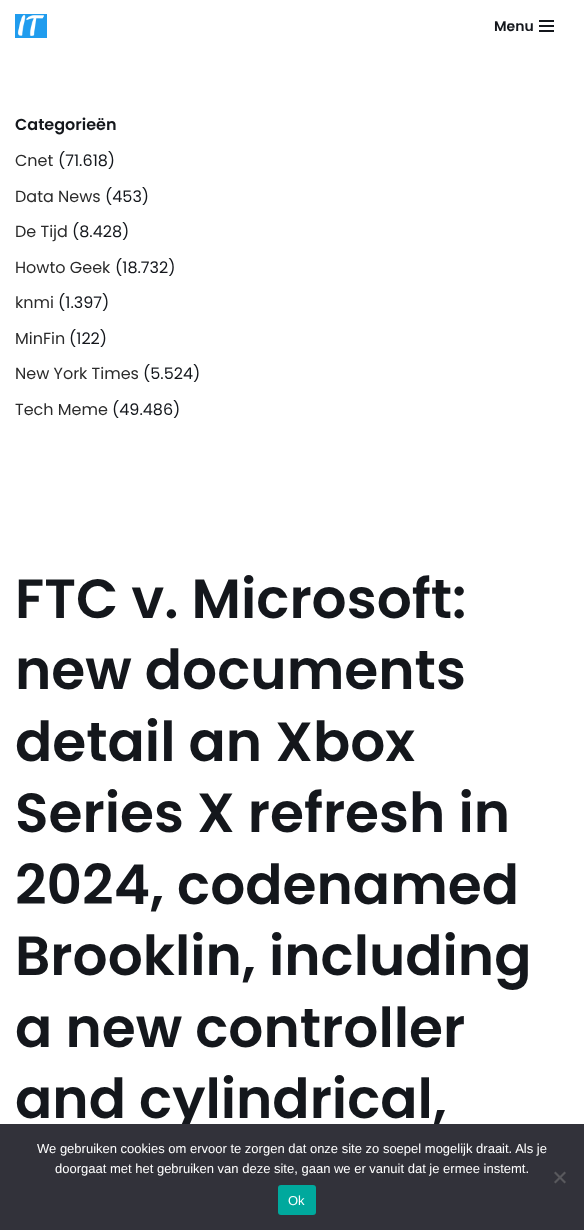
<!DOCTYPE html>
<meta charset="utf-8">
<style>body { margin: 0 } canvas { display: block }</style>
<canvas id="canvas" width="584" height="1230"></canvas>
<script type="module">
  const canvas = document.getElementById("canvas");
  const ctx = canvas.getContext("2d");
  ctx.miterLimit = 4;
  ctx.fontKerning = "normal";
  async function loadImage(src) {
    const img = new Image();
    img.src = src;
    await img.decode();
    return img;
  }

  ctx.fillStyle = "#ffffff";
  ctx.fillRect(0, 0, 584, 1230);
  ctx.drawImage(await loadImage("img1.png"), 15, 14, 32, 24);
  ctx.font = "600 14px Poppins";
  ctx.fillStyle = "#14171c";
  ctx.fillText("Menu", 494, 31);
  ctx.fillRect(539, 20, 15, 2);
  ctx.fillRect(539, 25, 15, 2);
  ctx.fillRect(539, 30, 15, 2);
  ctx.font = "600 16px Poppins";
  ctx.fillText("Categorieën", 15, 130);
  ctx.font = "16px Poppins";
  ctx.fillStyle = "#2b2b2b";
  ctx.fillText("Cnet", 15, 166);
  ctx.fillStyle = "#14171c";
  ctx.fillText("(71.618)", 58, 166);
  ctx.fillStyle = "#2b2b2b";
  ctx.fillText("Data News", 15, 202);
  ctx.fillStyle = "#14171c";
  ctx.fillText("(453)", 105, 202);
  ctx.fillStyle = "#2b2b2b";
  ctx.fillText("De Tijd", 15, 237);
  ctx.fillStyle = "#14171c";
  ctx.fillText("(8.428)", 72, 237);
  ctx.fillStyle = "#2b2b2b";
  ctx.fillText("Howto Geek", 15, 273);
  ctx.fillStyle = "#14171c";
  ctx.fillText("(18.732)", 115, 273);
  ctx.fillStyle = "#2b2b2b";
  ctx.fillText("knmi", 15, 308);
  ctx.fillStyle = "#14171c";
  ctx.fillText("(1.397)", 58, 308);
  ctx.fillStyle = "#2b2b2b";
  ctx.fillText("MinFin", 15, 344);
  ctx.fillStyle = "#14171c";
  ctx.fillText("(122)", 69, 344);
  ctx.fillStyle = "#2b2b2b";
  ctx.fillText("New York Times", 15, 379);
  ctx.fillStyle = "#14171c";
  ctx.fillText("(5.524)", 143, 379);
  ctx.fillStyle = "#2b2b2b";
  ctx.fillText("Tech Meme", 15, 415);
  ctx.fillStyle = "#14171c";
  ctx.fillText("(49.486)", 112, 415);
  ctx.font = "600 55px Poppins";
  ctx.fillText("FTC v. Microsoft:", 15, 618);
  ctx.fillText("new documents", 15, 689);
  ctx.fillText("detail an Xbox", 15, 761);
  ctx.fillText("Series X refresh in", 15, 832);
  ctx.fillText("2024, codenamed", 15, 904);
  ctx.fillText("Brooklin, including", 15, 975);
  ctx.fillText("a new controller", 15, 1047);
  ctx.fillText("and cylindrical,", 15, 1118);
  ctx.fillStyle = "#32323a";
  ctx.fillRect(0, 1124, 584, 106);
  ctx.font = "13px Liberation Sans";
  ctx.fillStyle = "#ffffff";
  ctx.fillText("We gebruiken cookies om ervoor te zorgen dat onze site zo soepel mogelijk draait. Als je", 37, 1153);
  ctx.fillText("doorgaat met het gebruiken van deze site, gaan we er vanuit dat je ermee instemt.", 55, 1173);
  ctx.fillStyle = "#59595d";
  ctx.beginPath();
  ctx.moveTo(564.5, 1171.5);
  ctx.lineTo(566, 1173);
  ctx.lineTo(555.5, 1183.5);
  ctx.lineTo(554, 1182);
  ctx.closePath();
  ctx.fill();
  ctx.beginPath();
  ctx.moveTo(554, 1173);
  ctx.lineTo(555.5, 1171.5);
  ctx.lineTo(566, 1182);
  ctx.lineTo(564.5, 1183.5);
  ctx.closePath();
  ctx.fill();
  ctx.fillStyle = "#00a99d";
  ctx.beginPath();
  ctx.roundRect(278, 1185, 38, 30, 3);
  ctx.fill();
  ctx.fillStyle = "#ffffff";
  ctx.fillText("Ok", 288, 1205);
</script>
